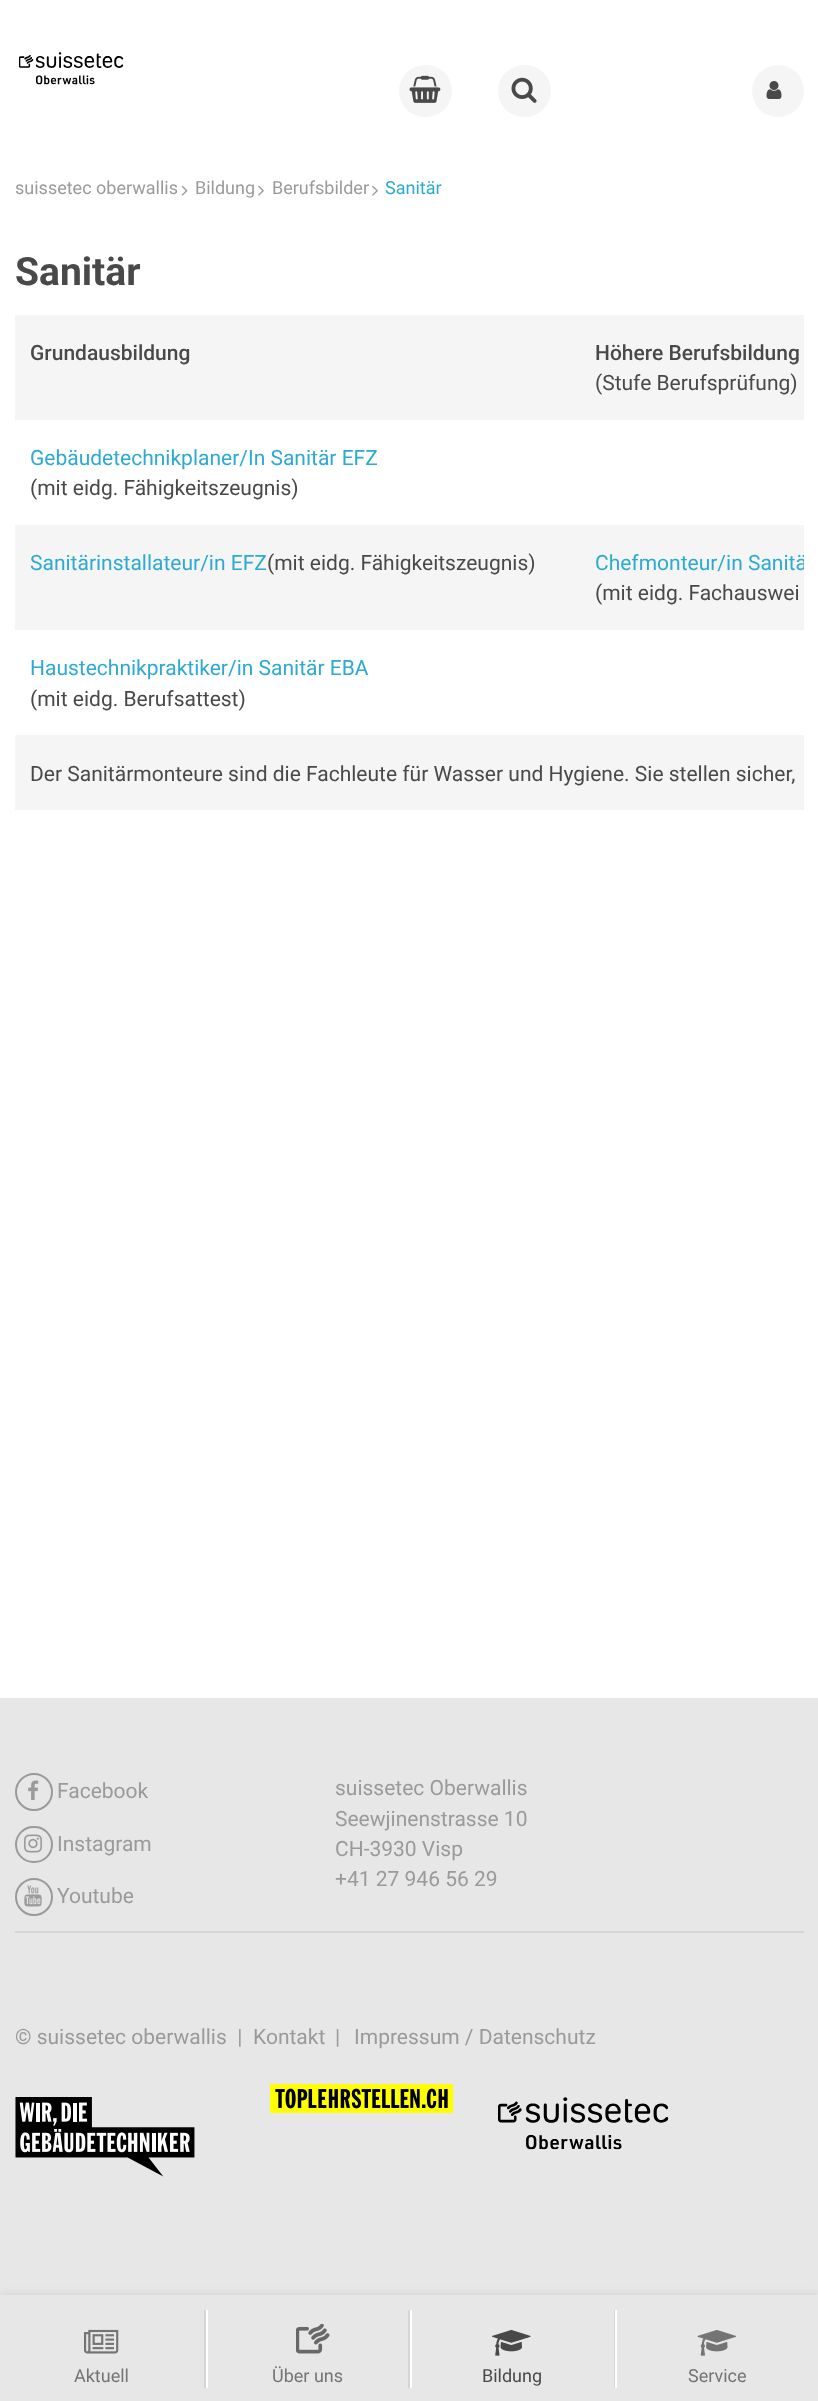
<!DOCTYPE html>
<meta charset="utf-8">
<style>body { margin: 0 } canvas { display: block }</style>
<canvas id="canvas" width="818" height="2401"></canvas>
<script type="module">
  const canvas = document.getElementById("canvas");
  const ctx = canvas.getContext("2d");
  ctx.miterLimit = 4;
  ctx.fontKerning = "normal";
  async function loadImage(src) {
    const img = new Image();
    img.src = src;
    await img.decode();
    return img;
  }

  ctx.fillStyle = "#ffffff";
  ctx.fillRect(0, 0, 818, 2401);
  ctx.drawImage(await loadImage("img1.png"), 19, 52, 105, 33);
  ctx.fillStyle = "#f5f5f5";
  ctx.beginPath();
  ctx.roundRect(399, 65, 53, 52, 26);
  ctx.fill();
  ctx.drawImage(await loadImage("img2.png"), 409, 75, 32, 28);
  ctx.beginPath();
  ctx.roundRect(498, 65, 53, 52, 26);
  ctx.fill();
  ctx.drawImage(await loadImage("img3.png"), 511, 77, 26, 26);
  ctx.beginPath();
  ctx.arc(778, 91, 26, 0, Math.PI * 2);
  ctx.fill();
  ctx.drawImage(await loadImage("img4.png"), 766, 81, 16, 18);
  ctx.font = "18px Roboto";
  ctx.fillStyle = "#9b9a9b";
  ctx.fillText("suissetec oberwallis", 15, 194);
  ctx.drawImage(await loadImage("img5.png"), 181, 185, 7, 11);
  ctx.fillText("Bildung", 195, 194);
  ctx.drawImage(await loadImage("img6.png"), 258, 185, 6, 11);
  ctx.fillText("Berufsbilder", 272, 194);
  ctx.drawImage(await loadImage("img6.png"), 372, 185, 6, 11);
  ctx.fillStyle = "#2daad2";
  ctx.fillText("Sanitär", 385, 194);
  ctx.font = "bold 39px Roboto";
  ctx.fillStyle = "#4a494a";
  ctx.fillText("Sanitär", 15, 285);
  ctx.fillStyle = "#f5f5f5";
  ctx.fillRect(15, 315, 789, 105);
  ctx.font = "500 21px Roboto";
  ctx.fillStyle = "#4a494a";
  ctx.fillText("Grundausbildung", 30, 360);
  ctx.fillText("Höhere Berufsbildung", 595, 360);
  ctx.font = "21px Roboto";
  ctx.fillText("(Stufe Berufsprüfung)", 595, 390);
  ctx.fillStyle = "#2daad2";
  ctx.fillText("Gebäudetechnikplaner/In Sanitär EFZ", 30, 465);
  ctx.fillStyle = "#4a494a";
  ctx.fillText("(mit eidg. Fähigkeitszeugnis)", 30, 495);
  ctx.fillStyle = "#f5f5f5";
  ctx.fillRect(15, 525, 789, 105);
  ctx.fillStyle = "#2daad2";
  ctx.fillText("Sanitärinstallateur/in EFZ", 30, 570);
  ctx.fillStyle = "#4a494a";
  ctx.fillText("(mit eidg. Fähigkeitszeugnis)", 267, 570);
  ctx.save();
  ctx.beginPath();
  ctx.rect(15, 315, 789, 495);
  ctx.clip();
  ctx.fillStyle = "#2daad2";
  ctx.fillText("Chefmonteur/in Sanitä", 595, 570);
  ctx.restore();
  ctx.fillText("(mit eidg. Fachauswei", 595, 600);
  ctx.fillStyle = "#2daad2";
  ctx.fillText("Haustechnikpraktiker/in Sanitär EBA", 30, 675);
  ctx.fillStyle = "#4a494a";
  ctx.fillText("(mit eidg. Berufsattest)", 30, 706);
  ctx.fillStyle = "#f5f5f5";
  ctx.fillRect(15, 735, 789, 75);
  ctx.fillStyle = "#4a494a";
  ctx.fillText("Der Sanitärmonteure sind die Fachleute für Wasser und Hygiene. Sie stellen sicher,", 30, 781);
  ctx.fillStyle = "#e7e7e7";
  ctx.fillRect(0, 1698, 818, 597);
  ctx.beginPath();
  ctx.arc(34, 1792, 18, 0, Math.PI * 2);
  ctx.strokeStyle = "#9b9a9b";
  ctx.lineWidth = 2;
  ctx.stroke();
  ctx.drawImage(await loadImage("img7.png"), 28, 1780, 11, 20);
  ctx.fillStyle = "#9b9a9b";
  ctx.fillText("Facebook", 57, 1798);
  ctx.beginPath();
  ctx.roundRect(16, 1827, 36, 35, 17.5);
  ctx.stroke();
  ctx.drawImage(await loadImage("img8.png"), 24, 1834, 18, 19);
  ctx.fillText("Instagram", 57, 1851);
  ctx.beginPath();
  ctx.arc(34, 1897, 18, 0, Math.PI * 2);
  ctx.stroke();
  ctx.drawImage(await loadImage("img9.png"), 24, 1885, 18, 22);
  ctx.fillText("Youtube", 57, 1903);
  ctx.fillText("suissetec Oberwallis", 335, 1795);
  ctx.fillText("Seewjinenstrasse 10", 335, 1826);
  ctx.fillText("CH-3930 Visp", 335, 1856);
  ctx.fillText("+41 27 946 56 29", 335, 1886);
  ctx.fillStyle = "#d3d6d8";
  ctx.fillRect(15, 1931, 789, 2);
  ctx.fillStyle = "#9b9a9b";
  ctx.fillText("© suissetec oberwallis  |", 15, 2044);
  ctx.fillText("Kontakt", 253, 2044);
  ctx.fillText("|", 335, 2044);
  ctx.fillText("Impressum / Datenschutz", 354, 2044);
  ctx.drawImage(await loadImage("img10.png"), 15, 2097, 180, 80);
  ctx.drawImage(await loadImage("img11.png"), 270, 2084, 183, 29);
  ctx.drawImage(await loadImage("img12.png"), 498, 2097, 171, 53);
  ctx.fillStyle = "rgba(0, 0, 0, 0.05)";
  ctx.filter = "blur(3px)";
  ctx.beginPath();
  ctx.rect(0, 2292, 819, 108);
  ctx.fill();
  ctx.filter = "none";
  ctx.fillStyle = "#e7e7e7";
  ctx.fillRect(0, 2295, 818, 106);
  ctx.fillStyle = "#d3d6d8";
  ctx.fillRect(204, 2310, 2, 78);
  ctx.drawImage(await loadImage("img13.png"), 84, 2329, 35, 25);
  ctx.font = "18px Roboto";
  ctx.fillStyle = "#747474";
  ctx.fillText("Aktuell", 74, 2382);
  ctx.fillStyle = "#d3d6d8";
  ctx.fillRect(408, 2310, 2, 78);
  ctx.fillStyle = "#ffffff";
  ctx.fillRect(206, 2310, 2, 78);
  ctx.drawImage(await loadImage("img14.png"), 296, 2324, 34, 30);
  ctx.fillStyle = "#747474";
  ctx.fillText("Über uns", 272, 2382);
  ctx.fillStyle = "#d3d6d8";
  ctx.fillRect(614, 2310, 1, 78);
  ctx.fillStyle = "#ffffff";
  ctx.fillRect(410, 2310, 2, 78);
  ctx.drawImage(await loadImage("img15.png"), 492, 2329, 39, 27);
  ctx.fillStyle = "#4a494a";
  ctx.fillText("Bildung", 482, 2382);
  ctx.fillStyle = "#ffffff";
  ctx.fillRect(615, 2310, 2, 78);
  ctx.drawImage(await loadImage("img16.png"), 697, 2330, 39, 26);
  ctx.fillStyle = "#747474";
  ctx.fillText("Service", 688, 2382);
</script>
